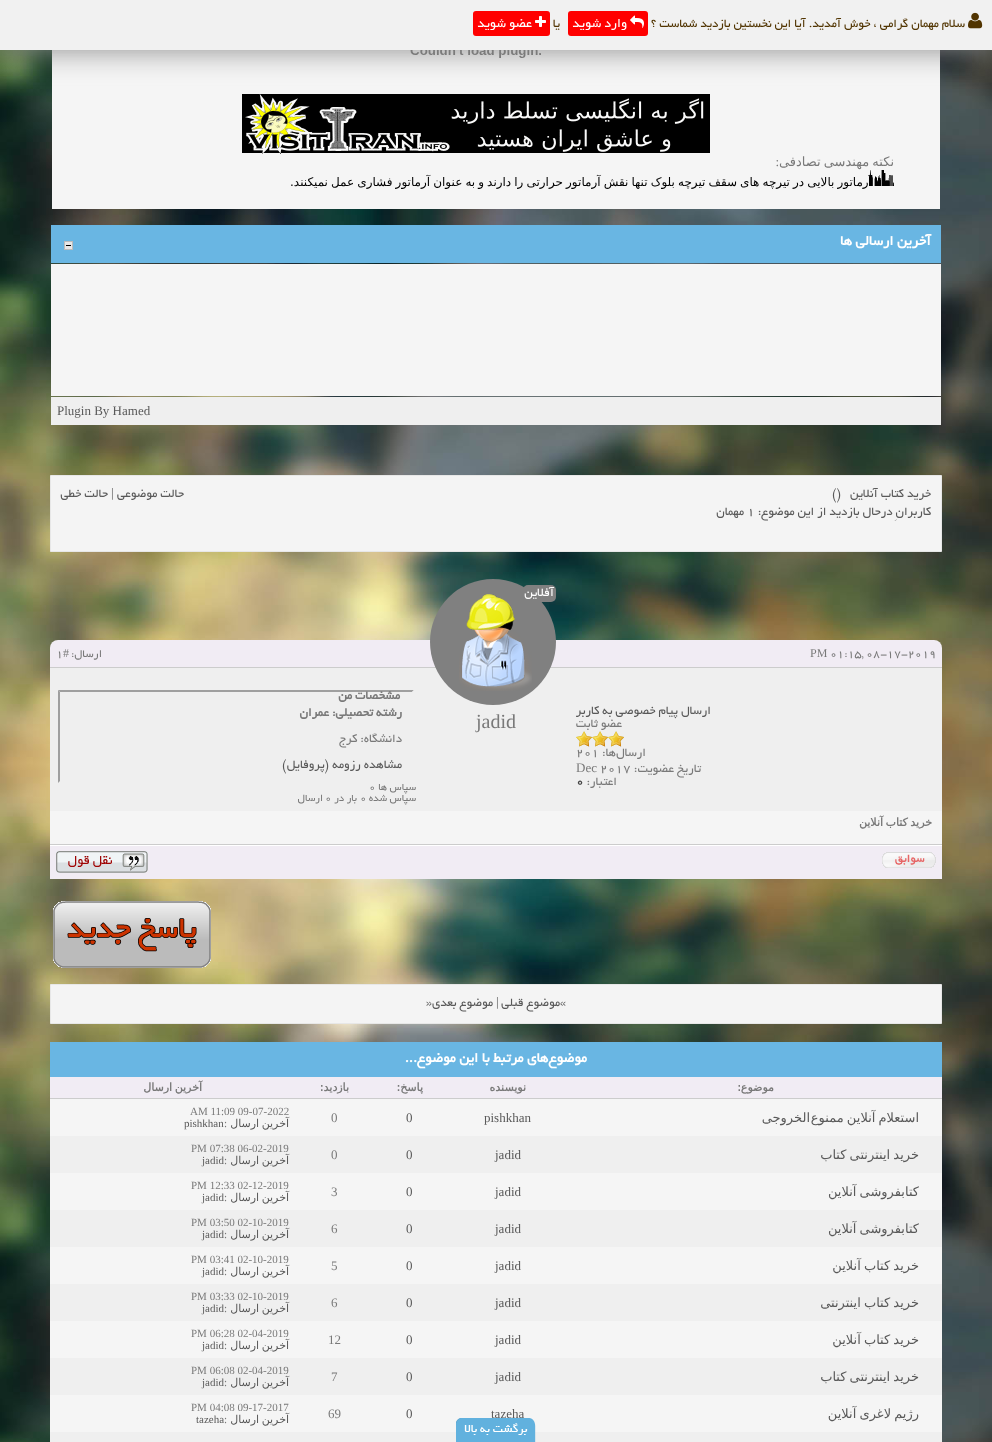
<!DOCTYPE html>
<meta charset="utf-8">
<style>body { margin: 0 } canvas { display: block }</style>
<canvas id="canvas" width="992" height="1442"></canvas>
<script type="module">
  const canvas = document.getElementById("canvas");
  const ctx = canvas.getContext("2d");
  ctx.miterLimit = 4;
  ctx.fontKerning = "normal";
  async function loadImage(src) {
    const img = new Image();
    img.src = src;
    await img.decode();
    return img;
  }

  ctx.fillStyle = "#ffffff";
  ctx.fillRect(0, 0, 992, 1442);
  ctx.drawImage(await loadImage("img1.png"), 0, 50, 992, 1392);
  ctx.fillStyle = "#f5f5f5";
  ctx.fillRect(52, 50, 888, 159);
  ctx.drawImage(await loadImage("img5.png"), 410, 50, 131, 8);
  ctx.drawImage(await loadImage("img6.png"), 242, 94, 468, 60);
  ctx.fillStyle = "#8a8a8a";
  ctx.filter = "blur(15px)";
  ctx.beginPath();
  ctx.rect(0, 0, 992, 50);
  ctx.fill();
  ctx.filter = "none";
  ctx.fillStyle = "#f1f1f1";
  ctx.fillRect(0, 0, 992, 50);
  ctx.drawImage(await loadImage("img2.png"), 968, 12, 15, 17);
  ctx.direction = "rtl";
  ctx.font = "13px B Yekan";
  ctx.fillStyle = "#513400";
  ctx.fillText("سلام مهمان گرامی ، خوش آمدید. آیا این نخستین بازدید شماست ؟", 965, 27);
  ctx.fillStyle = "#ff0000";
  ctx.beginPath();
  ctx.roundRect(568, 11, 80, 25, 3);
  ctx.fill();
  ctx.drawImage(await loadImage("img3.png"), 630, 15, 14, 13);
  ctx.font = "14px B Yekan";
  ctx.fillStyle = "#ffffff";
  ctx.fillText("وارد شوید", 627, 27);
  ctx.font = "13px B Yekan";
  ctx.fillStyle = "#513400";
  ctx.fillText("یا", 560, 27);
  ctx.fillStyle = "#ff0000";
  ctx.beginPath();
  ctx.roundRect(473, 11, 77, 25, 3);
  ctx.fill();
  ctx.drawImage(await loadImage("img4.png"), 535, 16, 11, 11);
  ctx.font = "14px B Yekan";
  ctx.fillStyle = "#ffffff";
  ctx.fillText("عضو شوید", 532, 27);
  ctx.wordSpacing = "-1px";
  ctx.font = "13px DejaVu Sans";
  ctx.fillStyle = "#797979";
  ctx.fillText("نکته مهندسی تصادفی", 894, 166);
  ctx.wordSpacing = "0px";
  ctx.font = "13px Liberation Serif";
  ctx.fillText(":", 779, 166);
  ctx.drawImage(await loadImage("img7.png"), 869, 170, 25, 16);
  ctx.wordSpacing = "-0.75px";
  ctx.font = "12px DejaVu Sans";
  ctx.fillStyle = "#000000";
  ctx.fillText("آرماتور بالایی در تیرچه های سقف تیرچه بلوک تنها نقش آرماتور حرارتی را دارند و به عنوان آرماتور فشاری عمل نمیکنند.", 872, 186);
  ctx.fillStyle = "#69b6e3";
  ctx.fillRect(51, 225, 890, 38);
  ctx.wordSpacing = "0px";
  ctx.font = "bold 15px B Yekan";
  ctx.fillStyle = "#ffffff";
  ctx.fillText("آخرین ارسالی ها", 931, 245);
  ctx.drawImage(await loadImage("img8.png"), 64, 241, 9, 9);
  ctx.fillStyle = "#f5f5f5";
  ctx.fillRect(51, 264, 890, 132);
  ctx.fillStyle = "#efefef";
  ctx.fillRect(51, 397, 890, 28);
  ctx.direction = "ltr";
  ctx.font = "13px Liberation Serif";
  ctx.fillStyle = "#595959";
  ctx.fillText("Plugin By Hamed", 57, 415);
  ctx.fillStyle = "#f4f4f4";
  ctx.beginPath();
  ctx.rect(50.5, 475.5, 891, 76);
  ctx.fill();
  ctx.strokeStyle = "#e7e7e7";
  ctx.stroke();
  ctx.direction = "rtl";
  ctx.font = "13px B Yekan";
  ctx.fillStyle = "#595959";
  ctx.fillText("خرید کتاب آنلاین   ()", 931, 497);
  ctx.fillText("حالت موضوعی", 184, 497);
  ctx.direction = "ltr";
  ctx.font = "13px Liberation Serif";
  ctx.fillText("|", 111, 497);
  ctx.direction = "rtl";
  ctx.font = "13px B Yekan";
  ctx.fillText("حالت خطی", 108, 497);
  ctx.fillText("کاربرانِ درحال بازدید از این موضوع:", 931, 515);
  ctx.direction = "ltr";
  ctx.fillText("1", 747, 515);
  ctx.direction = "rtl";
  ctx.fillText("مهمان", 744, 515);
  ctx.fillStyle = "#efefef";
  ctx.fillRect(50, 668, 892, 143);
  ctx.fillStyle = "#f1ecf4";
  ctx.beginPath();
  ctx.roundRect(50, 640, 892, 28, [8, 8, 0, 0]);
  ctx.fill();
  ctx.fillStyle = "#cccccc";
  ctx.fillRect(50, 667, 892, 1);
  ctx.fillStyle = "#808080";
  ctx.beginPath();
  ctx.arc(493, 642, 63, 0, Math.PI * 2);
  ctx.fill();
  ctx.drawImage(await loadImage("img9.png"), 459, 594, 73, 97);
  ctx.beginPath();
  ctx.roundRect(523, 585, 33, 17, 5);
  ctx.fill();
  ctx.fillStyle = "#ffffff";
  ctx.fillText("آفلاین", 554, 596);
  ctx.direction = "ltr";
  ctx.font = "20px Liberation Serif";
  ctx.fillStyle = "#797979";
  ctx.fillText("jadid", 476, 728);
  ctx.direction = "rtl";
  ctx.font = "13px B Yekan";
  ctx.fillStyle = "#595959";
  ctx.fillText("ارسال پیام خصوصی به کاربر", 711, 714);
  ctx.fillStyle = "#797979";
  ctx.fillText("عضو ثابت", 622, 727);
  ctx.drawImage(await loadImage("img10.png"), 608, 731, 16, 16);
  ctx.drawImage(await loadImage("img10.png"), 592, 731, 16, 16);
  ctx.drawImage(await loadImage("img10.png"), 576, 731, 16, 16);
  ctx.fillText("ارسال‌ها:", 646, 756);
  ctx.direction = "ltr";
  ctx.fillText("201", 576, 756);
  ctx.direction = "rtl";
  ctx.fillText("تاریخ عضویت:", 701, 772);
  ctx.direction = "ltr";
  ctx.fillText("2017", 600, 772);
  ctx.font = "13px Liberation Serif";
  ctx.fillText("Dec", 576, 772);
  ctx.direction = "rtl";
  ctx.font = "13px B Yekan";
  ctx.fillText("اعتبار:", 617, 785);
  ctx.direction = "ltr";
  ctx.font = "bold 13px B Yekan";
  ctx.fillStyle = "#444444";
  ctx.fillText("0", 576, 785);
  ctx.fillStyle = "#9f9f9f";
  ctx.beginPath();
  ctx.moveTo(58, 690);
  ctx.lineTo(414, 690);
  ctx.lineTo(412, 692);
  ctx.lineTo(60, 692);
  ctx.closePath();
  ctx.fill();
  ctx.fillStyle = "#efefef";
  ctx.beginPath();
  ctx.moveTo(414, 690);
  ctx.lineTo(414, 783);
  ctx.lineTo(412, 781);
  ctx.lineTo(412, 692);
  ctx.closePath();
  ctx.fill();
  ctx.fillStyle = "#9f9f9f";
  ctx.beginPath();
  ctx.moveTo(58, 783);
  ctx.lineTo(58, 690);
  ctx.lineTo(60, 692);
  ctx.lineTo(60, 781);
  ctx.closePath();
  ctx.fill();
  ctx.direction = "rtl";
  ctx.fillStyle = "#797979";
  ctx.fillText("مشخصات من", 400, 699);
  ctx.fillText("رشته تحصیلی: عمران", 402, 716);
  ctx.font = "13px B Yekan";
  ctx.fillText("دانشگاه: کرج", 402, 742);
  ctx.fillStyle = "#595959";
  ctx.fillText("مشاهده رزومه (پروفایل)", 402, 768);
  ctx.font = "11px B Yekan";
  ctx.fillStyle = "#797979";
  ctx.fillText("سپاس ها", 416, 790);
  ctx.direction = "ltr";
  ctx.fillText("0", 369, 790);
  ctx.direction = "rtl";
  ctx.fillText("سپاس شده", 416, 801);
  ctx.direction = "ltr";
  ctx.fillText("0", 360, 801);
  ctx.direction = "rtl";
  ctx.fillText("بار در", 357, 801);
  ctx.direction = "ltr";
  ctx.fillText("0", 325, 801);
  ctx.direction = "rtl";
  ctx.fillText("ارسال", 323, 801);
  ctx.direction = "ltr";
  ctx.font = "12px B Yekan";
  ctx.fillText("01:15, 08-17-2019", 830, 657);
  ctx.font = "12px Liberation Serif";
  ctx.fillText("PM", 810, 657);
  ctx.direction = "rtl";
  ctx.font = "12px B Yekan";
  ctx.fillText("ارسال:", 102, 657);
  ctx.direction = "ltr";
  ctx.font = "12px Liberation Serif";
  ctx.fillText("#", 63, 657);
  ctx.font = "12px B Yekan";
  ctx.fillText("1", 56, 657);
  ctx.fillStyle = "#f5f5f5";
  ctx.fillRect(50, 811, 892, 33);
  ctx.wordSpacing = "-1px";
  ctx.direction = "rtl";
  ctx.font = "bold 11px DejaVu Sans";
  ctx.fillStyle = "#797979";
  ctx.fillText("خرید کتاب آنلاین", 932, 826);
  ctx.fillStyle = "#f1ecf4";
  ctx.fillRect(50, 846, 892, 33);
  ctx.fillStyle = "#ffffff";
  ctx.fillRect(50, 845, 892, 1);
  ctx.fillStyle = "#cccccc";
  ctx.fillRect(50, 844, 892, 1);
  ctx.drawImage(await loadImage("img11.png"), 882, 852, 54, 16);
  ctx.drawImage(await loadImage("img12.png"), 56, 851, 92, 22);
  ctx.drawImage(await loadImage("img13.png"), 53, 901, 158, 67);
  ctx.fillStyle = "#f4f4f4";
  ctx.beginPath();
  ctx.rect(50.5, 984.5, 891, 39);
  ctx.fill();
  ctx.stroke();
  ctx.wordSpacing = "0px";
  ctx.direction = "ltr";
  ctx.font = "13px B Yekan";
  ctx.fillStyle = "#595959";
  ctx.fillText("«", 560, 1006);
  ctx.direction = "rtl";
  ctx.fillText("موضوع قبلی", 560, 1006);
  ctx.direction = "ltr";
  ctx.font = "13px Liberation Serif";
  ctx.fillText("|", 496, 1006);
  ctx.direction = "rtl";
  ctx.font = "13px B Yekan";
  ctx.fillText("موضوع بعدی", 493, 1006);
  ctx.direction = "ltr";
  ctx.fillText("»", 426, 1006);
  ctx.fillStyle = "#69b6e3";
  ctx.fillRect(50, 1042, 892, 35);
  ctx.direction = "rtl";
  ctx.font = "bold 15px B Yekan";
  ctx.fillStyle = "#ffffff";
  ctx.fillText("موضوع‌های مرتبط با این موضوع...", 587, 1062);
  ctx.fillStyle = "#f1ecf4";
  ctx.fillRect(50, 1077, 892, 21);
  ctx.fillStyle = "#cccccc";
  ctx.fillRect(50, 1098, 892, 1);
  ctx.font = "bold 11px DejaVu Sans";
  ctx.fillStyle = "#797979";
  ctx.fillText("موضوع:", 774, 1091);
  ctx.fillText("نویسنده", 526, 1091);
  ctx.fillText("پاسخ:", 423, 1091);
  ctx.fillText("بازدید:", 349, 1091);
  ctx.wordSpacing = "-1px";
  ctx.fillText("آخرین ارسال", 202, 1091);
  ctx.fillStyle = "#f5f5f5";
  ctx.fillRect(50, 1099, 892, 37);
  ctx.font = "13px DejaVu Sans";
  ctx.fillStyle = "#595959";
  ctx.fillText("استعلام آنلاین ممنوع", 919, 1122);
  ctx.wordSpacing = "0px";
  ctx.fillText("الخروجی", 810, 1122);
  ctx.direction = "ltr";
  ctx.font = "13px Liberation Serif";
  ctx.fillText("pishkhan", 484, 1122);
  ctx.fillText("0", 406, 1122);
  ctx.fillStyle = "#797979";
  ctx.fillText("0", 331, 1122);
  ctx.font = "11px Liberation Serif";
  ctx.fillText("AM 11:09 09-07-2022", 190, 1115);
  ctx.wordSpacing = "-1px";
  ctx.direction = "rtl";
  ctx.font = "11px DejaVu Sans";
  ctx.fillStyle = "#595959";
  ctx.fillText("آخرین ارسال", 289, 1127);
  ctx.wordSpacing = "0px";
  ctx.direction = "ltr";
  ctx.font = "11px Liberation Serif";
  ctx.fillStyle = "#797979";
  ctx.fillText(":", 224, 1127);
  ctx.fillStyle = "#595959";
  ctx.fillText("pishkhan", 184, 1127);
  ctx.fillStyle = "#efefef";
  ctx.fillRect(50, 1136, 892, 37);
  ctx.wordSpacing = "-1px";
  ctx.direction = "rtl";
  ctx.font = "13px DejaVu Sans";
  ctx.fillStyle = "#595959";
  ctx.fillText("خرید اینترنتی کتاب", 919, 1159);
  ctx.wordSpacing = "0px";
  ctx.direction = "ltr";
  ctx.font = "13px Liberation Serif";
  ctx.fillText("jadid", 495, 1159);
  ctx.fillText("0", 406, 1159);
  ctx.fillStyle = "#797979";
  ctx.fillText("0", 331, 1159);
  ctx.font = "11px Liberation Serif";
  ctx.fillText("PM 07:38 06-02-2019", 191, 1152);
  ctx.wordSpacing = "-1px";
  ctx.direction = "rtl";
  ctx.font = "11px DejaVu Sans";
  ctx.fillStyle = "#595959";
  ctx.fillText("آخرین ارسال", 289, 1164);
  ctx.wordSpacing = "0px";
  ctx.direction = "ltr";
  ctx.font = "11px Liberation Serif";
  ctx.fillStyle = "#797979";
  ctx.fillText(":", 224, 1164);
  ctx.fillStyle = "#595959";
  ctx.fillText("jadid", 202, 1164);
  ctx.fillStyle = "#f5f5f5";
  ctx.fillRect(50, 1173, 892, 37);
  ctx.wordSpacing = "-1px";
  ctx.direction = "rtl";
  ctx.font = "13px DejaVu Sans";
  ctx.fillStyle = "#595959";
  ctx.fillText("کتابفروشی آنلاین", 919, 1196);
  ctx.wordSpacing = "0px";
  ctx.direction = "ltr";
  ctx.font = "13px Liberation Serif";
  ctx.fillText("jadid", 495, 1196);
  ctx.fillText("0", 406, 1196);
  ctx.fillStyle = "#797979";
  ctx.fillText("3", 331, 1196);
  ctx.font = "11px Liberation Serif";
  ctx.fillText("PM 12:33 02-12-2019", 191, 1189);
  ctx.wordSpacing = "-1px";
  ctx.direction = "rtl";
  ctx.font = "11px DejaVu Sans";
  ctx.fillStyle = "#595959";
  ctx.fillText("آخرین ارسال", 289, 1201);
  ctx.wordSpacing = "0px";
  ctx.direction = "ltr";
  ctx.font = "11px Liberation Serif";
  ctx.fillStyle = "#797979";
  ctx.fillText(":", 224, 1201);
  ctx.fillStyle = "#595959";
  ctx.fillText("jadid", 202, 1201);
  ctx.fillStyle = "#efefef";
  ctx.fillRect(50, 1210, 892, 37);
  ctx.wordSpacing = "-1px";
  ctx.direction = "rtl";
  ctx.font = "13px DejaVu Sans";
  ctx.fillStyle = "#595959";
  ctx.fillText("کتابفروشی آنلاین", 919, 1233);
  ctx.wordSpacing = "0px";
  ctx.direction = "ltr";
  ctx.font = "13px Liberation Serif";
  ctx.fillText("jadid", 495, 1233);
  ctx.fillText("0", 406, 1233);
  ctx.fillStyle = "#797979";
  ctx.fillText("6", 331, 1233);
  ctx.font = "11px Liberation Serif";
  ctx.fillText("PM 03:50 02-10-2019", 191, 1226);
  ctx.wordSpacing = "-1px";
  ctx.direction = "rtl";
  ctx.font = "11px DejaVu Sans";
  ctx.fillStyle = "#595959";
  ctx.fillText("آخرین ارسال", 289, 1238);
  ctx.wordSpacing = "0px";
  ctx.direction = "ltr";
  ctx.font = "11px Liberation Serif";
  ctx.fillStyle = "#797979";
  ctx.fillText(":", 224, 1238);
  ctx.fillStyle = "#595959";
  ctx.fillText("jadid", 202, 1238);
  ctx.fillStyle = "#f5f5f5";
  ctx.fillRect(50, 1247, 892, 37);
  ctx.wordSpacing = "-1px";
  ctx.direction = "rtl";
  ctx.font = "13px DejaVu Sans";
  ctx.fillStyle = "#595959";
  ctx.fillText("خرید کتاب آنلاین", 919, 1270);
  ctx.wordSpacing = "0px";
  ctx.direction = "ltr";
  ctx.font = "13px Liberation Serif";
  ctx.fillText("jadid", 495, 1270);
  ctx.fillText("0", 406, 1270);
  ctx.fillStyle = "#797979";
  ctx.fillText("5", 331, 1270);
  ctx.font = "11px Liberation Serif";
  ctx.fillText("PM 03:41 02-10-2019", 191, 1263);
  ctx.wordSpacing = "-1px";
  ctx.direction = "rtl";
  ctx.font = "11px DejaVu Sans";
  ctx.fillStyle = "#595959";
  ctx.fillText("آخرین ارسال", 289, 1275);
  ctx.wordSpacing = "0px";
  ctx.direction = "ltr";
  ctx.font = "11px Liberation Serif";
  ctx.fillStyle = "#797979";
  ctx.fillText(":", 224, 1275);
  ctx.fillStyle = "#595959";
  ctx.fillText("jadid", 202, 1275);
  ctx.fillStyle = "#efefef";
  ctx.fillRect(50, 1284, 892, 37);
  ctx.wordSpacing = "-1px";
  ctx.direction = "rtl";
  ctx.font = "13px DejaVu Sans";
  ctx.fillStyle = "#595959";
  ctx.fillText("خرید کتاب اینترنتی", 919, 1307);
  ctx.wordSpacing = "0px";
  ctx.direction = "ltr";
  ctx.font = "13px Liberation Serif";
  ctx.fillText("jadid", 495, 1307);
  ctx.fillText("0", 406, 1307);
  ctx.fillStyle = "#797979";
  ctx.fillText("6", 331, 1307);
  ctx.font = "11px Liberation Serif";
  ctx.fillText("PM 03:33 02-10-2019", 191, 1300);
  ctx.wordSpacing = "-1px";
  ctx.direction = "rtl";
  ctx.font = "11px DejaVu Sans";
  ctx.fillStyle = "#595959";
  ctx.fillText("آخرین ارسال", 289, 1312);
  ctx.wordSpacing = "0px";
  ctx.direction = "ltr";
  ctx.font = "11px Liberation Serif";
  ctx.fillStyle = "#797979";
  ctx.fillText(":", 224, 1312);
  ctx.fillStyle = "#595959";
  ctx.fillText("jadid", 202, 1312);
  ctx.fillStyle = "#f5f5f5";
  ctx.fillRect(50, 1321, 892, 37);
  ctx.wordSpacing = "-1px";
  ctx.direction = "rtl";
  ctx.font = "13px DejaVu Sans";
  ctx.fillStyle = "#595959";
  ctx.fillText("خرید کتاب آنلاین", 919, 1344);
  ctx.wordSpacing = "0px";
  ctx.direction = "ltr";
  ctx.font = "13px Liberation Serif";
  ctx.fillText("jadid", 495, 1344);
  ctx.fillText("0", 406, 1344);
  ctx.fillStyle = "#797979";
  ctx.fillText("12", 328, 1344);
  ctx.font = "11px Liberation Serif";
  ctx.fillText("PM 06:28 02-04-2019", 191, 1337);
  ctx.wordSpacing = "-1px";
  ctx.direction = "rtl";
  ctx.font = "11px DejaVu Sans";
  ctx.fillStyle = "#595959";
  ctx.fillText("آخرین ارسال", 289, 1349);
  ctx.wordSpacing = "0px";
  ctx.direction = "ltr";
  ctx.font = "11px Liberation Serif";
  ctx.fillStyle = "#797979";
  ctx.fillText(":", 224, 1349);
  ctx.fillStyle = "#595959";
  ctx.fillText("jadid", 202, 1349);
  ctx.fillStyle = "#efefef";
  ctx.fillRect(50, 1358, 892, 37);
  ctx.wordSpacing = "-1px";
  ctx.direction = "rtl";
  ctx.font = "13px DejaVu Sans";
  ctx.fillStyle = "#595959";
  ctx.fillText("خرید اینترنتی کتاب", 919, 1381);
  ctx.wordSpacing = "0px";
  ctx.direction = "ltr";
  ctx.font = "13px Liberation Serif";
  ctx.fillText("jadid", 495, 1381);
  ctx.fillText("0", 406, 1381);
  ctx.fillStyle = "#797979";
  ctx.fillText("7", 331, 1381);
  ctx.font = "11px Liberation Serif";
  ctx.fillText("PM 06:08 02-04-2019", 191, 1374);
  ctx.wordSpacing = "-1px";
  ctx.direction = "rtl";
  ctx.font = "11px DejaVu Sans";
  ctx.fillStyle = "#595959";
  ctx.fillText("آخرین ارسال", 289, 1386);
  ctx.wordSpacing = "0px";
  ctx.direction = "ltr";
  ctx.font = "11px Liberation Serif";
  ctx.fillStyle = "#797979";
  ctx.fillText(":", 224, 1386);
  ctx.fillStyle = "#595959";
  ctx.fillText("jadid", 202, 1386);
  ctx.fillStyle = "#f5f5f5";
  ctx.fillRect(50, 1395, 892, 37);
  ctx.wordSpacing = "-1px";
  ctx.direction = "rtl";
  ctx.font = "13px DejaVu Sans";
  ctx.fillStyle = "#595959";
  ctx.fillText("رژیم لاغری آنلاین", 919, 1418);
  ctx.wordSpacing = "0px";
  ctx.direction = "ltr";
  ctx.font = "13px Liberation Serif";
  ctx.fillText("tazeha", 491, 1418);
  ctx.fillText("0", 406, 1418);
  ctx.fillStyle = "#797979";
  ctx.fillText("69", 328, 1418);
  ctx.font = "11px Liberation Serif";
  ctx.fillText("PM 04:08 09-17-2017", 191, 1411);
  ctx.wordSpacing = "-1px";
  ctx.direction = "rtl";
  ctx.font = "11px DejaVu Sans";
  ctx.fillStyle = "#595959";
  ctx.fillText("آخرین ارسال", 289, 1423);
  ctx.wordSpacing = "0px";
  ctx.direction = "ltr";
  ctx.font = "11px Liberation Serif";
  ctx.fillStyle = "#797979";
  ctx.fillText(":", 224, 1423);
  ctx.fillStyle = "#595959";
  ctx.fillText("tazeha", 196, 1423);
  ctx.fillStyle = "#efefef";
  ctx.fillRect(50, 1432, 892, 10);
  ctx.drawImage(await loadImage("img14.png"), 456, 1418, 80, 24);
</script>
